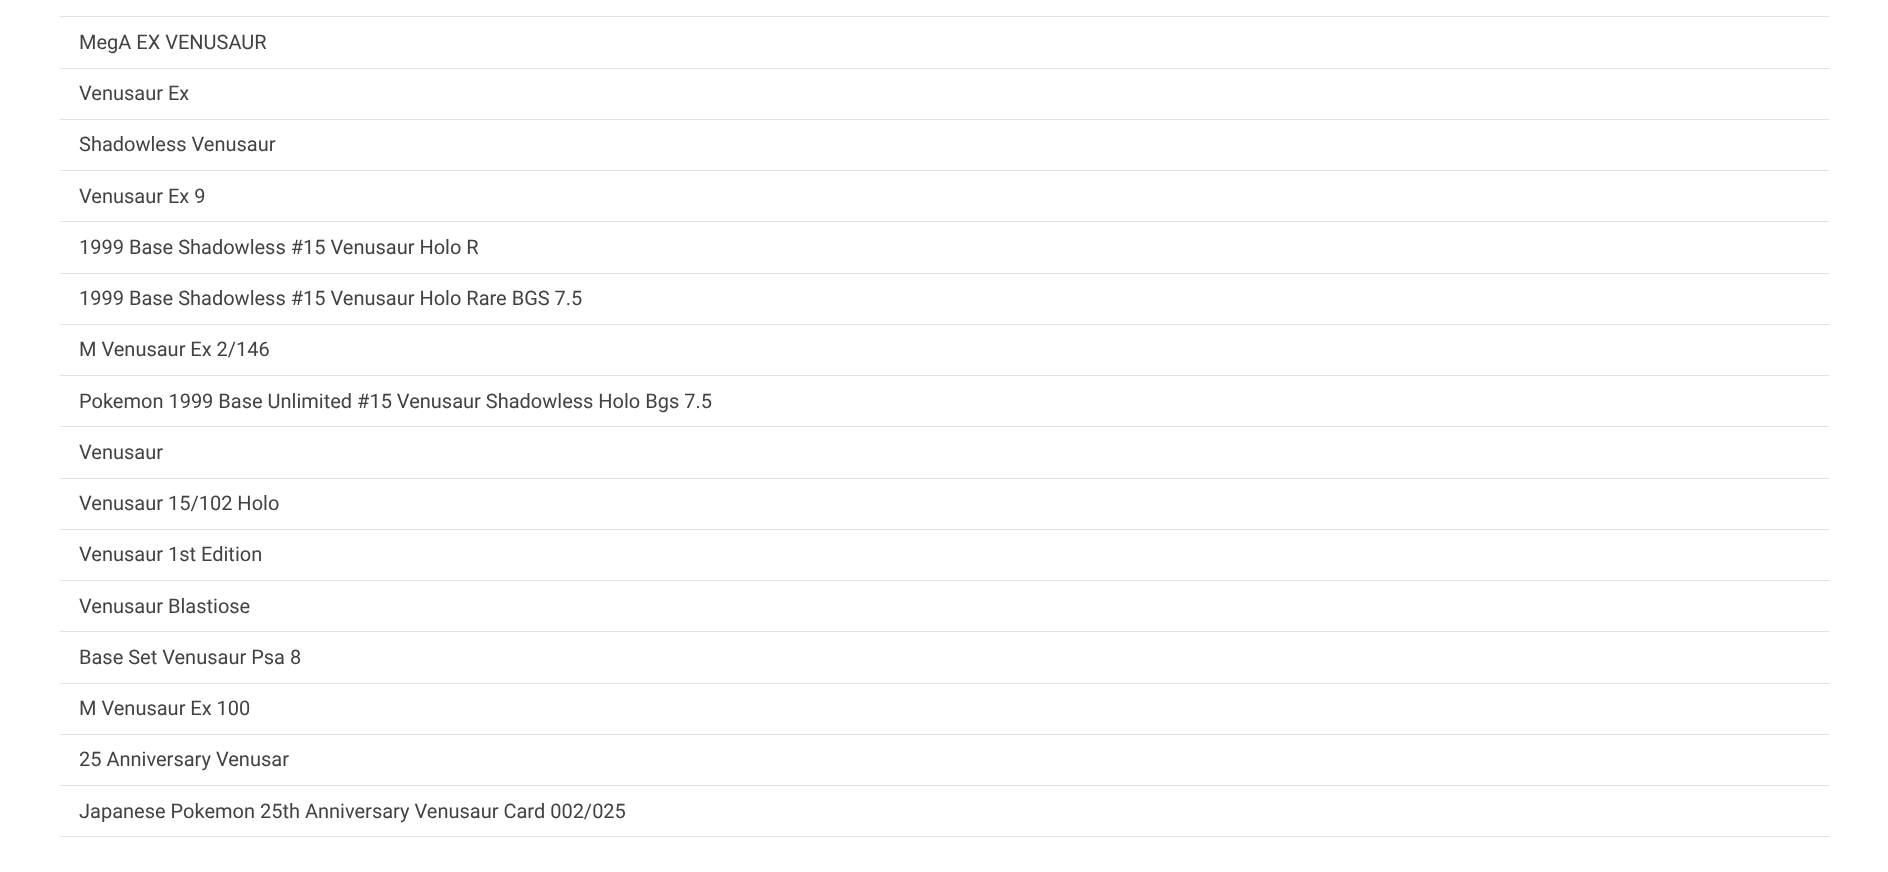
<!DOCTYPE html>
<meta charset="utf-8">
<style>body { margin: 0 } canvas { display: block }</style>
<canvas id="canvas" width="1888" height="872"></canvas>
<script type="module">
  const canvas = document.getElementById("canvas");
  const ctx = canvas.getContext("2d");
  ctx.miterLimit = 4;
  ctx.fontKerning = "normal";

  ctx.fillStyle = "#ffffff";
  ctx.fillRect(0, 0, 1888, 872);
  ctx.fillStyle = "#dee2e6";
  ctx.fillRect(60, 16, 1769, 1);
  ctx.fillRect(60, 68, 1769, 1);
  ctx.font = "20px Roboto";
  ctx.fillStyle = "#424242";
  ctx.fillText("MegA EX VENUSAUR", 79, 49);
  ctx.fillStyle = "#dee2e6";
  ctx.fillRect(60, 119, 1769, 1);
  ctx.fillStyle = "#424242";
  ctx.fillText("Venusaur Ex", 79, 100);
  ctx.fillStyle = "#dee2e6";
  ctx.fillRect(60, 170, 1769, 1);
  ctx.fillStyle = "#424242";
  ctx.fillText("Shadowless Venusaur", 79, 151);
  ctx.fillStyle = "#dee2e6";
  ctx.fillRect(60, 221, 1769, 1);
  ctx.fillStyle = "#424242";
  ctx.fillText("Venusaur Ex 9", 79, 203);
  ctx.fillStyle = "#dee2e6";
  ctx.fillRect(60, 273, 1769, 1);
  ctx.fillStyle = "#424242";
  ctx.fillText("1999 Base Shadowless #15 Venusaur Holo R", 79, 254);
  ctx.fillStyle = "#dee2e6";
  ctx.fillRect(60, 324, 1769, 1);
  ctx.fillStyle = "#424242";
  ctx.fillText("1999 Base Shadowless #15 Venusaur Holo Rare BGS 7.5", 79, 305);
  ctx.fillStyle = "#dee2e6";
  ctx.fillRect(60, 375, 1769, 1);
  ctx.fillStyle = "#424242";
  ctx.fillText("M Venusaur Ex 2/146", 79, 356);
  ctx.fillStyle = "#dee2e6";
  ctx.fillRect(60, 426, 1769, 1);
  ctx.fillStyle = "#424242";
  ctx.fillText("Pokemon 1999 Base Unlimited #15 Venusaur Shadowless Holo Bgs 7.5", 79, 408);
  ctx.fillStyle = "#dee2e6";
  ctx.fillRect(60, 478, 1769, 1);
  ctx.fillStyle = "#424242";
  ctx.fillText("Venusaur", 79, 459);
  ctx.fillStyle = "#dee2e6";
  ctx.fillRect(60, 529, 1769, 1);
  ctx.fillStyle = "#424242";
  ctx.fillText("Venusaur 15/102 Holo", 79, 510);
  ctx.fillStyle = "#dee2e6";
  ctx.fillRect(60, 580, 1769, 1);
  ctx.fillStyle = "#424242";
  ctx.fillText("Venusaur 1st Edition", 79, 561);
  ctx.fillStyle = "#dee2e6";
  ctx.fillRect(60, 631, 1769, 1);
  ctx.fillStyle = "#424242";
  ctx.fillText("Venusaur Blastiose", 79, 613);
  ctx.fillStyle = "#dee2e6";
  ctx.fillRect(60, 683, 1769, 1);
  ctx.fillStyle = "#424242";
  ctx.fillText("Base Set Venusaur Psa 8", 79, 664);
  ctx.fillStyle = "#dee2e6";
  ctx.fillRect(60, 734, 1769, 1);
  ctx.fillStyle = "#424242";
  ctx.fillText("M Venusaur Ex 100", 79, 715);
  ctx.fillStyle = "#dee2e6";
  ctx.fillRect(60, 785, 1769, 1);
  ctx.fillStyle = "#424242";
  ctx.fillText("25 Anniversary Venusar", 79, 766);
  ctx.fillStyle = "#dee2e6";
  ctx.fillRect(60, 836, 1769, 1);
  ctx.fillStyle = "#424242";
  ctx.fillText("Japanese Pokemon 25th Anniversary Venusaur Card 002/025", 79, 818);
</script>
